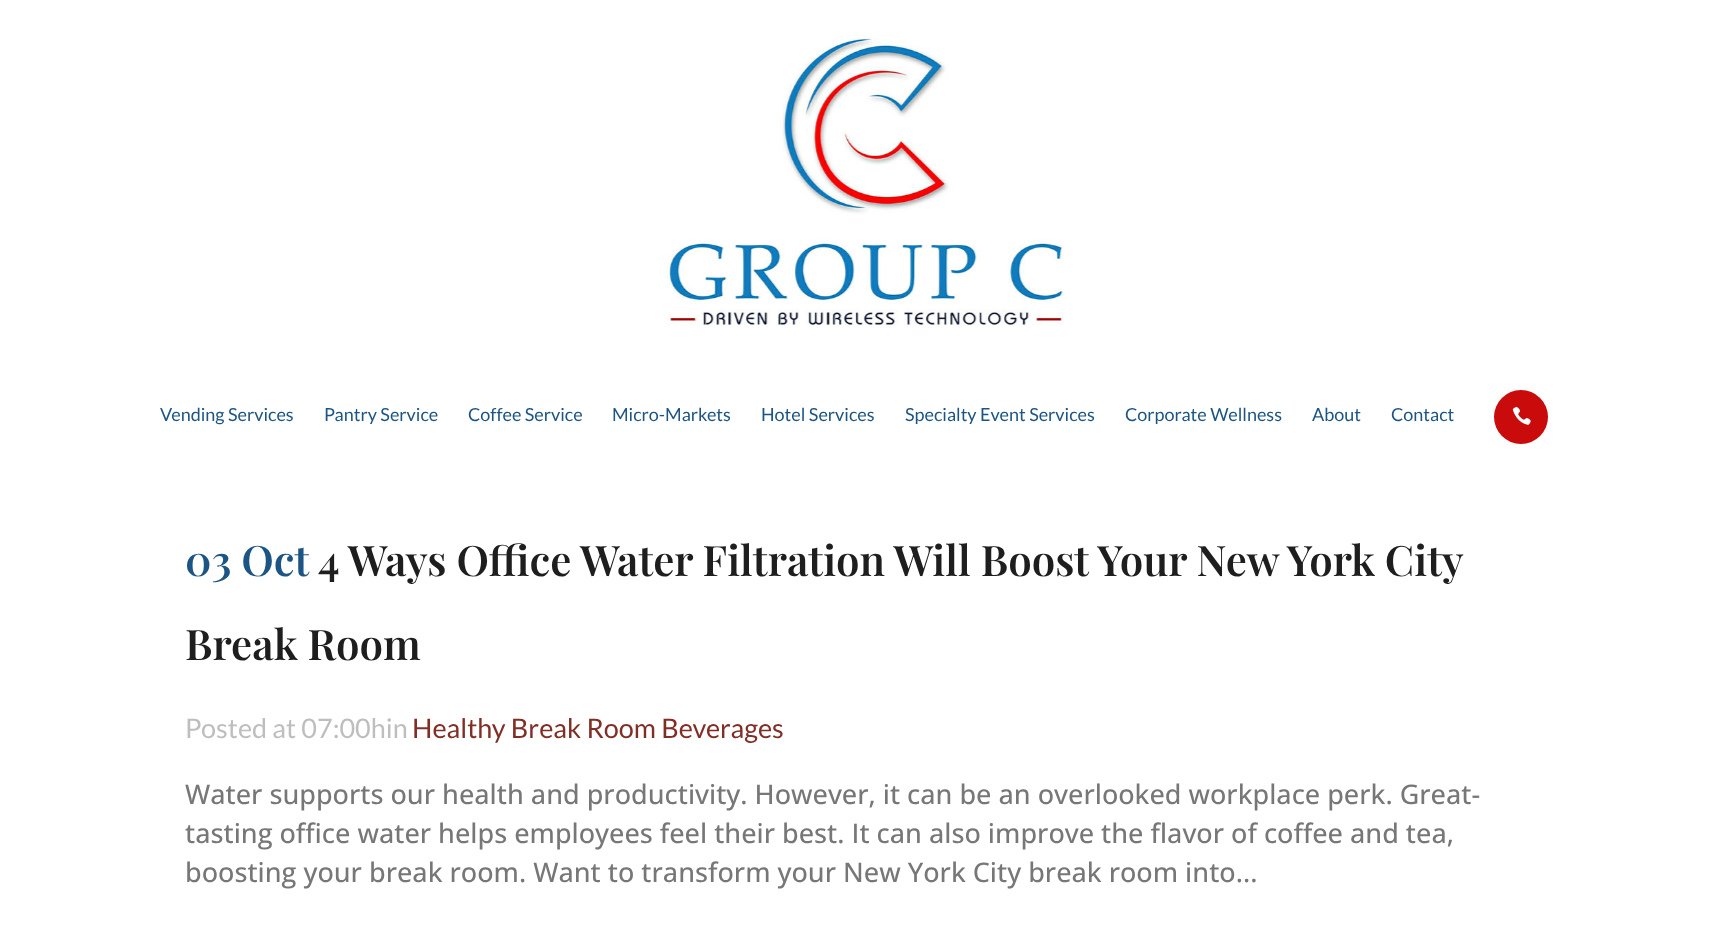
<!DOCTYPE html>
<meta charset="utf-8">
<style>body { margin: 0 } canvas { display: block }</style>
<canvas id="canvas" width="1724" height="936"></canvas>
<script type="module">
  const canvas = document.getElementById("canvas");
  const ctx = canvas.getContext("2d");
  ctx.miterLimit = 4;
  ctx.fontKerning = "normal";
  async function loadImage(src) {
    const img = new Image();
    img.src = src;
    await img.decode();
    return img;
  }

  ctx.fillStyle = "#ffffff";
  ctx.fillRect(0, 0, 1724, 936);
  ctx.drawImage(await loadImage("img1.png"), 665, 35, 399, 291);
  ctx.font = "18px Lato";
  ctx.fillStyle = "#1c5584";
  ctx.fillText("Vending Services", 160, 421);
  ctx.fillText("Pantry Service", 324, 421);
  ctx.fillText("Coffee Service", 468, 421);
  ctx.fillText("Micro-Markets", 612, 421);
  ctx.fillText("Hotel Services", 761, 421);
  ctx.fillText("Specialty Event Services", 905, 421);
  ctx.fillText("Corporate Wellness", 1125, 421);
  ctx.fillText("About", 1312, 421);
  ctx.fillText("Contact", 1391, 421);
  ctx.fillStyle = "#c90b0b";
  ctx.beginPath();
  ctx.arc(1521, 417, 27, 0, Math.PI * 2);
  ctx.fill();
  ctx.drawImage(await loadImage("img2.png"), 1512, 407, 19, 18);
  ctx.font = "600 42px Playfair Display";
  ctx.fillStyle = "#1c5584";
  ctx.fillText("03 Oct", 185, 576);
  ctx.wordSpacing = "-0.1px";
  ctx.fillStyle = "#1e1e1e";
  ctx.fillText("4 Ways Office Water Filtration Will Boost Your New York City", 318, 576);
  ctx.wordSpacing = "0px";
  ctx.fillText("Break Room", 185, 660);
  ctx.font = "27px Lato";
  ctx.fillStyle = "#bebebe";
  ctx.fillText("Posted at 07:00hin", 185, 738);
  ctx.fillStyle = "#812e26";
  ctx.fillText("Healthy Break Room Beverages", 412, 738);
  ctx.font = "500 27px Open Sans";
  ctx.fillStyle = "#777777";
  ctx.fillText("Water supports our health and productivity. However, it can be an overlooked workplace perk. Great-", 185, 804);
  ctx.fillText("tasting office water helps employees feel their best. It can also improve the flavor of coffee and tea,", 185, 843);
  ctx.fillText("boosting your break room. Want to transform your New York City break room into...", 185, 882);
</script>
